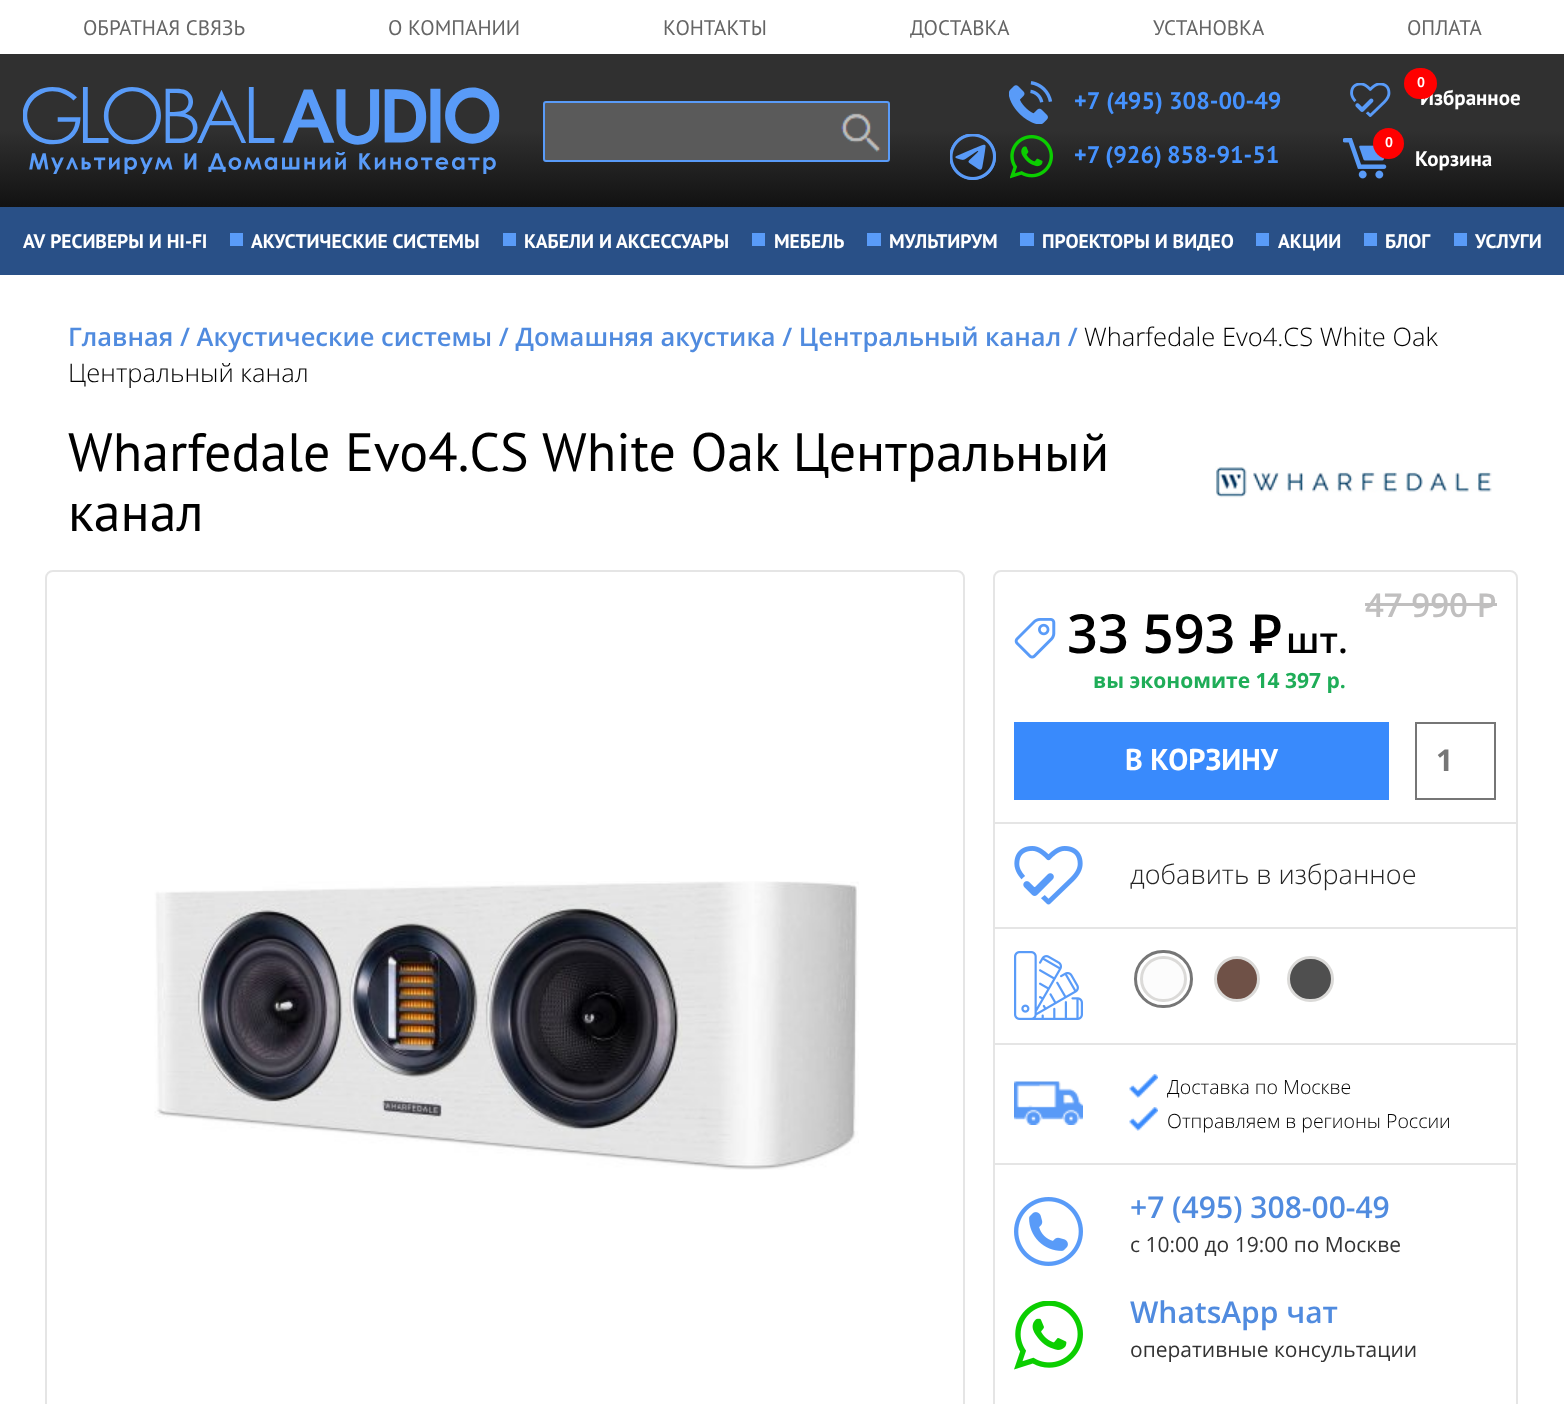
<!DOCTYPE html>
<meta charset="utf-8">
<style>body { margin: 0 } canvas { display: block }</style>
<canvas id="canvas" width="1564" height="1404"></canvas>
<script type="module">
  const canvas = document.getElementById("canvas");
  const ctx = canvas.getContext("2d");
  ctx.miterLimit = 4;
  ctx.fontKerning = "normal";
  async function loadImage(src) {
    const img = new Image();
    img.src = src;
    await img.decode();
    return img;
  }
  let gradient;

  ctx.fillStyle = "#ffffff";
  ctx.fillRect(0, 0, 1564, 1404);
  ctx.font = "21px PT Sans";
  ctx.fillStyle = "#656565";
  ctx.fillText("ОБРАТНАЯ СВЯЗЬ", 83, 35);
  ctx.fillText("О КОМПАНИИ", 388, 35);
  ctx.fillText("КОНТАКТЫ", 663, 35);
  ctx.fillText("ДОСТАВКА", 910, 35);
  ctx.fillText("УСТАНОВКА", 1153, 35);
  ctx.fillText("ОПЛАТА", 1407, 35);
  gradient = ctx.createLinearGradient(782, 54, 782, 207);
  gradient.addColorStop(0.5, "#303030");
  gradient.addColorStop(1, "#121212");
  ctx.fillStyle = gradient;
  ctx.fillRect(0, 54, 1564, 153);
  ctx.drawImage(await loadImage("img1.png"), 23, 87, 477, 87);
  ctx.fillStyle = "#5a5a5a";
  ctx.beginPath();
  ctx.roundRect(544, 102, 345, 59, 2);
  ctx.fill();
  ctx.strokeStyle = "#599bf8";
  ctx.lineWidth = 2;
  ctx.stroke();
  ctx.drawImage(await loadImage("img2.png"), 841, 113, 40, 39);
  ctx.drawImage(await loadImage("img3.png"), 1009, 81, 44, 43);
  ctx.font = "bold 24px PT Sans";
  ctx.fillStyle = "#4592fe";
  ctx.fillText("+7 (495) 308-00-49", 1074, 109);
  ctx.drawImage(await loadImage("img4.png"), 950, 134, 46, 46);
  ctx.drawImage(await loadImage("img5.png"), 1010, 135, 43, 44);
  ctx.wordSpacing = "-1px";
  ctx.fillText("+7 (926) 858-91-51", 1074, 163);
  ctx.drawImage(await loadImage("img6.png"), 1350, 83, 41, 34);
  ctx.wordSpacing = "0px";
  ctx.font = "bold 21px PT Sans";
  ctx.fillStyle = "#ffffff";
  ctx.fillText("Избранное", 1420, 105);
  ctx.fillStyle = "#ff0000";
  ctx.beginPath();
  ctx.roundRect(1404, 68, 33, 31, 15.5);
  ctx.fill();
  ctx.font = "bold 14px PT Sans";
  ctx.fillStyle = "#ffffff";
  ctx.fillText("0", 1417, 87);
  ctx.drawImage(await loadImage("img7.png"), 1343, 138, 44, 41);
  ctx.fillStyle = "#ff0000";
  ctx.beginPath();
  ctx.arc(1388.5, 143.5, 15.5, 0, Math.PI * 2);
  ctx.fill();
  ctx.fillStyle = "#ffffff";
  ctx.fillText("0", 1385, 147);
  ctx.font = "bold 21px PT Sans";
  ctx.fillText("Корзина", 1415, 166);
  ctx.fillStyle = "#295087";
  ctx.fillRect(0, 207, 1564, 68);
  ctx.font = "bold 19.5px PT Sans";
  ctx.fillStyle = "#ffffff";
  ctx.fillText("AV РЕСИВЕРЫ И HI-FI", 23, 248);
  ctx.fillStyle = "#599bf8";
  ctx.fillRect(230, 233, 13, 13);
  ctx.fillStyle = "#ffffff";
  ctx.fillText("АКУСТИЧЕСКИЕ СИСТЕМЫ", 251, 248);
  ctx.fillStyle = "#599bf8";
  ctx.fillRect(503, 233, 13, 13);
  ctx.fillStyle = "#ffffff";
  ctx.fillText("КАБЕЛИ И АКСЕССУАРЫ", 524, 248);
  ctx.fillStyle = "#599bf8";
  ctx.fillRect(752, 233, 13, 13);
  ctx.fillStyle = "#ffffff";
  ctx.fillText("МЕБЕЛЬ", 774, 248);
  ctx.fillStyle = "#599bf8";
  ctx.fillRect(867, 233, 14, 13);
  ctx.fillStyle = "#ffffff";
  ctx.fillText("МУЛЬТИРУМ", 889, 248);
  ctx.fillStyle = "#599bf8";
  ctx.fillRect(1020, 233, 14, 13);
  ctx.fillStyle = "#ffffff";
  ctx.fillText("ПРОЕКТОРЫ И ВИДЕО", 1042, 248);
  ctx.fillStyle = "#599bf8";
  ctx.fillRect(1256, 233, 13, 13);
  ctx.fillStyle = "#ffffff";
  ctx.fillText("АКЦИИ", 1278, 248);
  ctx.fillStyle = "#599bf8";
  ctx.fillRect(1364, 233, 13, 13);
  ctx.fillStyle = "#ffffff";
  ctx.fillText("БЛОГ", 1385, 248);
  ctx.fillStyle = "#599bf8";
  ctx.fillRect(1454, 233, 13, 13);
  ctx.fillStyle = "#ffffff";
  ctx.fillText("УСЛУГИ", 1475, 248);
  ctx.font = "600 25.5px Open Sans";
  ctx.fillStyle = "#508bdf";
  ctx.fillText("Главная / Акустические системы / Домашняя акустика / Центральный канал /", 68, 346);
  ctx.font = "300 25.5px Open Sans";
  ctx.fillStyle = "#000000";
  ctx.fillText("Wharfedale Evo4.CS White Oak", 1084, 346);
  ctx.fillText("Центральный канал", 68, 382);
  ctx.font = "54px PT Sans";
  ctx.fillText("Wharfedale Evo4.CS White Oak Центральный", 68, 471);
  ctx.fillText("канал", 68, 531);
  ctx.drawImage(await loadImage("img8.png"), 1215, 466, 277, 32);
  ctx.beginPath();
  ctx.roundRect(46, 571, 918, 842, 7);
  ctx.strokeStyle = "#e5e5e5";
  ctx.stroke();
  ctx.drawImage(await loadImage("img9.png"), 154, 881, 705, 289);
  ctx.beginPath();
  ctx.roundRect(994, 571, 523, 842, 7);
  ctx.stroke();
  ctx.fillStyle = "#e5e5e5";
  ctx.fillRect(995, 822, 522, 2);
  ctx.font = "600 33px Open Sans";
  ctx.fillStyle = "#c0bfbf";
  ctx.fillText("47 990 P", 1365, 617);
  ctx.fillRect(1365, 603, 132, 3);
  ctx.drawImage(await loadImage("img10.png"), 1014, 618, 42, 41);
  ctx.font = "600 54px Open Sans";
  ctx.fillStyle = "#000000";
  ctx.fillText("33 593", 1067, 653);
  ctx.fillRect(1250, 641, 22, 5);
  ctx.fillText("Р", 1250, 653);
  ctx.font = "600 36px Open Sans";
  ctx.fillText("шт.", 1286, 653);
  ctx.font = "bold 21px Open Sans";
  ctx.fillStyle = "#1fad58";
  ctx.fillText("вы экономите 14 397 р.", 1093, 688);
  ctx.fillStyle = "#398afc";
  ctx.fillRect(1014, 722, 375, 78);
  ctx.font = "bold 30px PT Sans";
  ctx.fillStyle = "#ffffff";
  ctx.fillText("В КОРЗИНУ", 1125, 770);
  ctx.strokeStyle = "#767676";
  ctx.strokeRect(1416, 723, 79, 76);
  ctx.font = "bold 30px Open Sans";
  ctx.fillStyle = "#767676";
  ctx.fillText("1", 1436, 771);
  ctx.fillStyle = "#e5e5e5";
  ctx.fillRect(995, 927, 522, 2);
  ctx.drawImage(await loadImage("img11.png"), 1014, 846, 69, 59);
  ctx.font = "300 27px Open Sans";
  ctx.fillStyle = "#252525";
  ctx.fillText("добавить в избранное", 1130, 884);
  ctx.fillStyle = "#e5e5e5";
  ctx.fillRect(995, 1043, 522, 2);
  ctx.drawImage(await loadImage("img12.png"), 1014, 951, 69, 69);
  ctx.fillStyle = "#fcfcfc";
  ctx.beginPath();
  ctx.roundRect(1141.5, 957.5, 44, 43, 21.5);
  ctx.fill();
  ctx.strokeStyle = "#dbdad8";
  ctx.lineWidth = 3;
  ctx.stroke();
  ctx.beginPath();
  ctx.roundRect(1135.5, 951.5, 56, 55, 27.5);
  ctx.strokeStyle = "#767676";
  ctx.stroke();
  ctx.fillStyle = "#6f5147";
  ctx.beginPath();
  ctx.arc(1237, 979, 21.5, 0, Math.PI * 2);
  ctx.fill();
  ctx.strokeStyle = "#dbdad8";
  ctx.stroke();
  ctx.fillStyle = "#4f4f4f";
  ctx.beginPath();
  ctx.roundRect(1288.5, 957.5, 44, 43, 21.5);
  ctx.fill();
  ctx.stroke();
  ctx.fillStyle = "#e5e5e5";
  ctx.fillRect(995, 1163, 522, 2);
  ctx.drawImage(await loadImage("img13.png"), 1014, 1081, 69, 44);
  ctx.drawImage(await loadImage("img14.png"), 1129, 1074, 29, 24);
  ctx.font = "300 19.5px Open Sans";
  ctx.fillStyle = "#000000";
  ctx.fillText("Доставка по Москве", 1167, 1094);
  ctx.drawImage(await loadImage("img14.png"), 1129, 1107, 29, 24);
  ctx.fillText("Отправляем в регионы России", 1167, 1128);
  ctx.drawImage(await loadImage("img15.png"), 1014, 1197, 69, 69);
  ctx.font = "600 30px Open Sans";
  ctx.fillStyle = "#508bdf";
  ctx.fillText("+7 (495) 308-00-49", 1130, 1218);
  ctx.font = "21px Open Sans";
  ctx.fillStyle = "#333333";
  ctx.fillText("с 10:00 до 19:00 по Москве", 1130, 1252);
  ctx.drawImage(await loadImage("img16.png"), 1014, 1301, 69, 69);
  ctx.font = "600 30px Open Sans";
  ctx.fillStyle = "#508bdf";
  ctx.fillText("WhatsApp чат", 1130, 1323);
  ctx.font = "21px Open Sans";
  ctx.fillStyle = "#333333";
  ctx.fillText("оперативные консультации", 1130, 1357);
</script>
